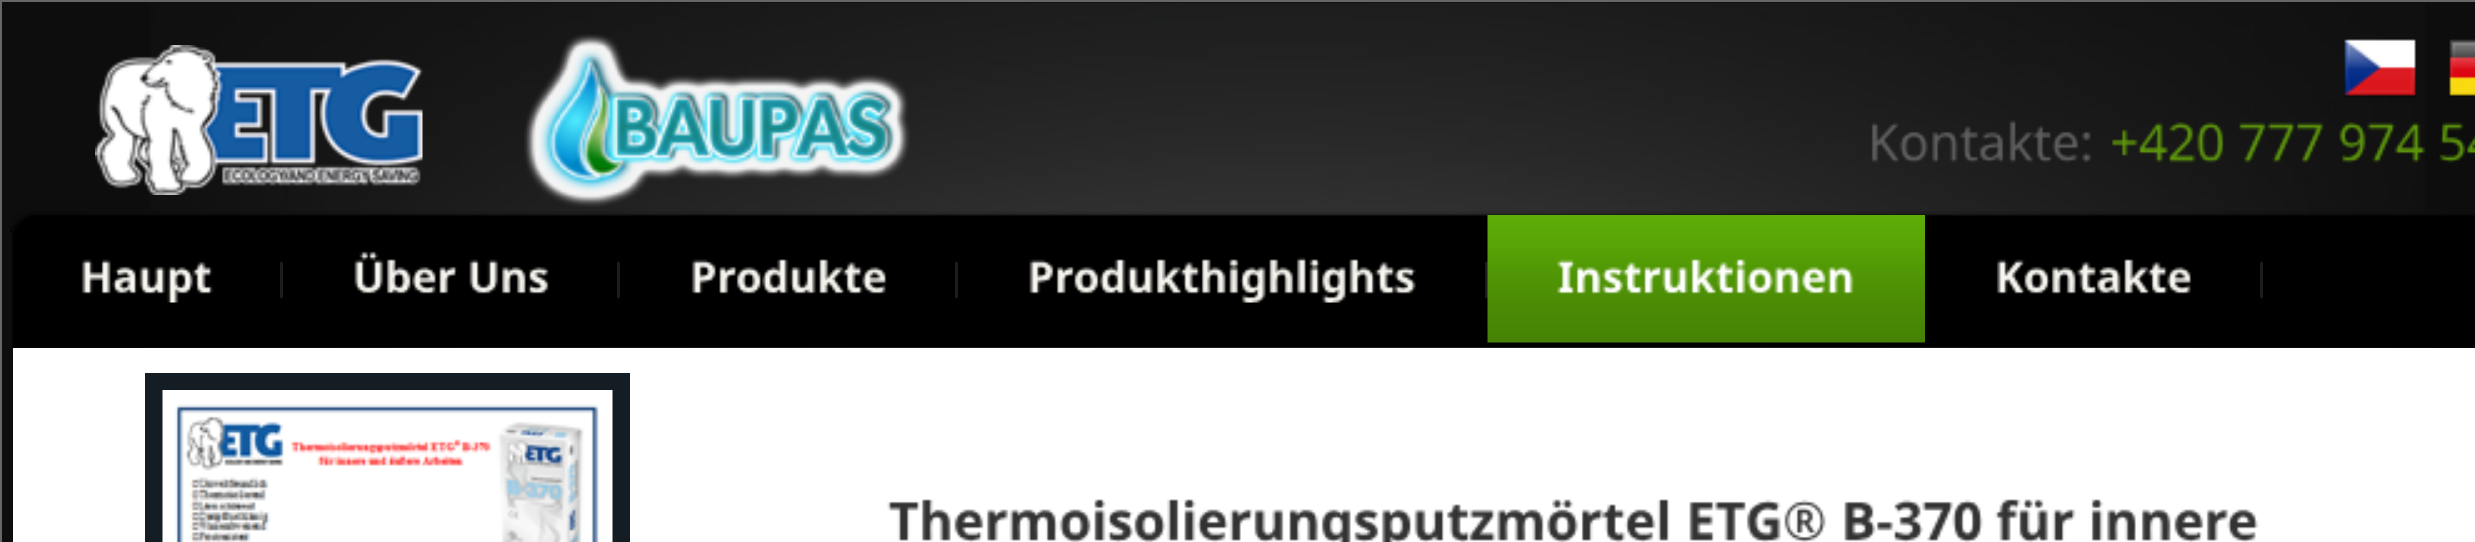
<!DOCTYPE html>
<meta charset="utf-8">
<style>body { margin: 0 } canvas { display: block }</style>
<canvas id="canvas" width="2475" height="542"></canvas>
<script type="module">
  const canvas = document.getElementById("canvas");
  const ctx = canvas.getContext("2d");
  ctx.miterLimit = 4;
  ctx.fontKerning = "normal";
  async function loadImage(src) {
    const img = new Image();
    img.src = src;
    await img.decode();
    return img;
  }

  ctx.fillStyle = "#666666";
  ctx.fillRect(0, 0, 2475, 542);
  ctx.fillStyle = "#0d0d0d";
  ctx.fillRect(2, 2, 2473, 540);
  ctx.drawImage(await loadImage("img1.png"), 150, 2, 2275, 346);
  ctx.drawImage(await loadImage("img2.png"), 95, 45, 328, 150);
  ctx.drawImage(await loadImage("img3.png"), 524, 34, 386, 173);
  ctx.drawImage(await loadImage("img4.png"), 2344, 39, 72, 59);
  ctx.drawImage(await loadImage("img5.png"), 2449, 39, 26, 58);
  ctx.drawImage(await loadImage("img6.png"), 1871, 120, 220, 43);
  ctx.drawImage(await loadImage("img7.png"), 2111, 122, 113, 41);
  ctx.drawImage(await loadImage("img8.png"), 2239, 122, 85, 41);
  ctx.drawImage(await loadImage("img9.png"), 2339, 122, 87, 41);
  ctx.drawImage(await loadImage("img10.png"), 2439, 122, 36, 41);
  ctx.drawImage(await loadImage("img11.png"), 12, 211, 2463, 137);
  ctx.drawImage(await loadImage("img12.png"), 10, 226, 4, 7);
  ctx.fillStyle = "#1b1d1b";
  ctx.fillRect(280, 262, 3, 36);
  ctx.drawImage(await loadImage("img13.png"), 81, 259, 132, 44);
  ctx.fillRect(617, 262, 3, 36);
  ctx.drawImage(await loadImage("img14.png"), 354, 251, 104, 43);
  ctx.drawImage(await loadImage("img15.png"), 469, 259, 80, 35);
  ctx.fillRect(955, 262, 3, 36);
  ctx.drawImage(await loadImage("img16.png"), 691, 259, 196, 35);
  ctx.fillRect(1485, 262, 3, 36);
  ctx.drawImage(await loadImage("img17.png"), 1029, 257, 387, 46);
  ctx.drawImage(await loadImage("img18.png"), 1487, 215, 438, 128);
  ctx.drawImage(await loadImage("img19.png"), 1556, 259, 298, 35);
  ctx.fillRect(2260, 262, 3, 36);
  ctx.drawImage(await loadImage("img20.png"), 1996, 259, 196, 35);
  ctx.fillStyle = "#ffffff";
  ctx.fillRect(13, 348, 2462, 194);
  ctx.strokeStyle = "#141d23";
  ctx.lineWidth = 18;
  ctx.strokeRect(154, 382, 467, 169);
  ctx.drawImage(await loadImage("img21.png"), 162, 390, 451, 152);
  ctx.drawImage(await loadImage("img22.png"), 887, 499, 783, 43);
  ctx.drawImage(await loadImage("img23.png"), 1689, 499, 137, 43);
  ctx.drawImage(await loadImage("img24.png"), 1844, 499, 140, 43);
  ctx.drawImage(await loadImage("img25.png"), 1994, 499, 82, 43);
  ctx.drawImage(await loadImage("img26.png"), 2091, 499, 168, 43);
</script>
